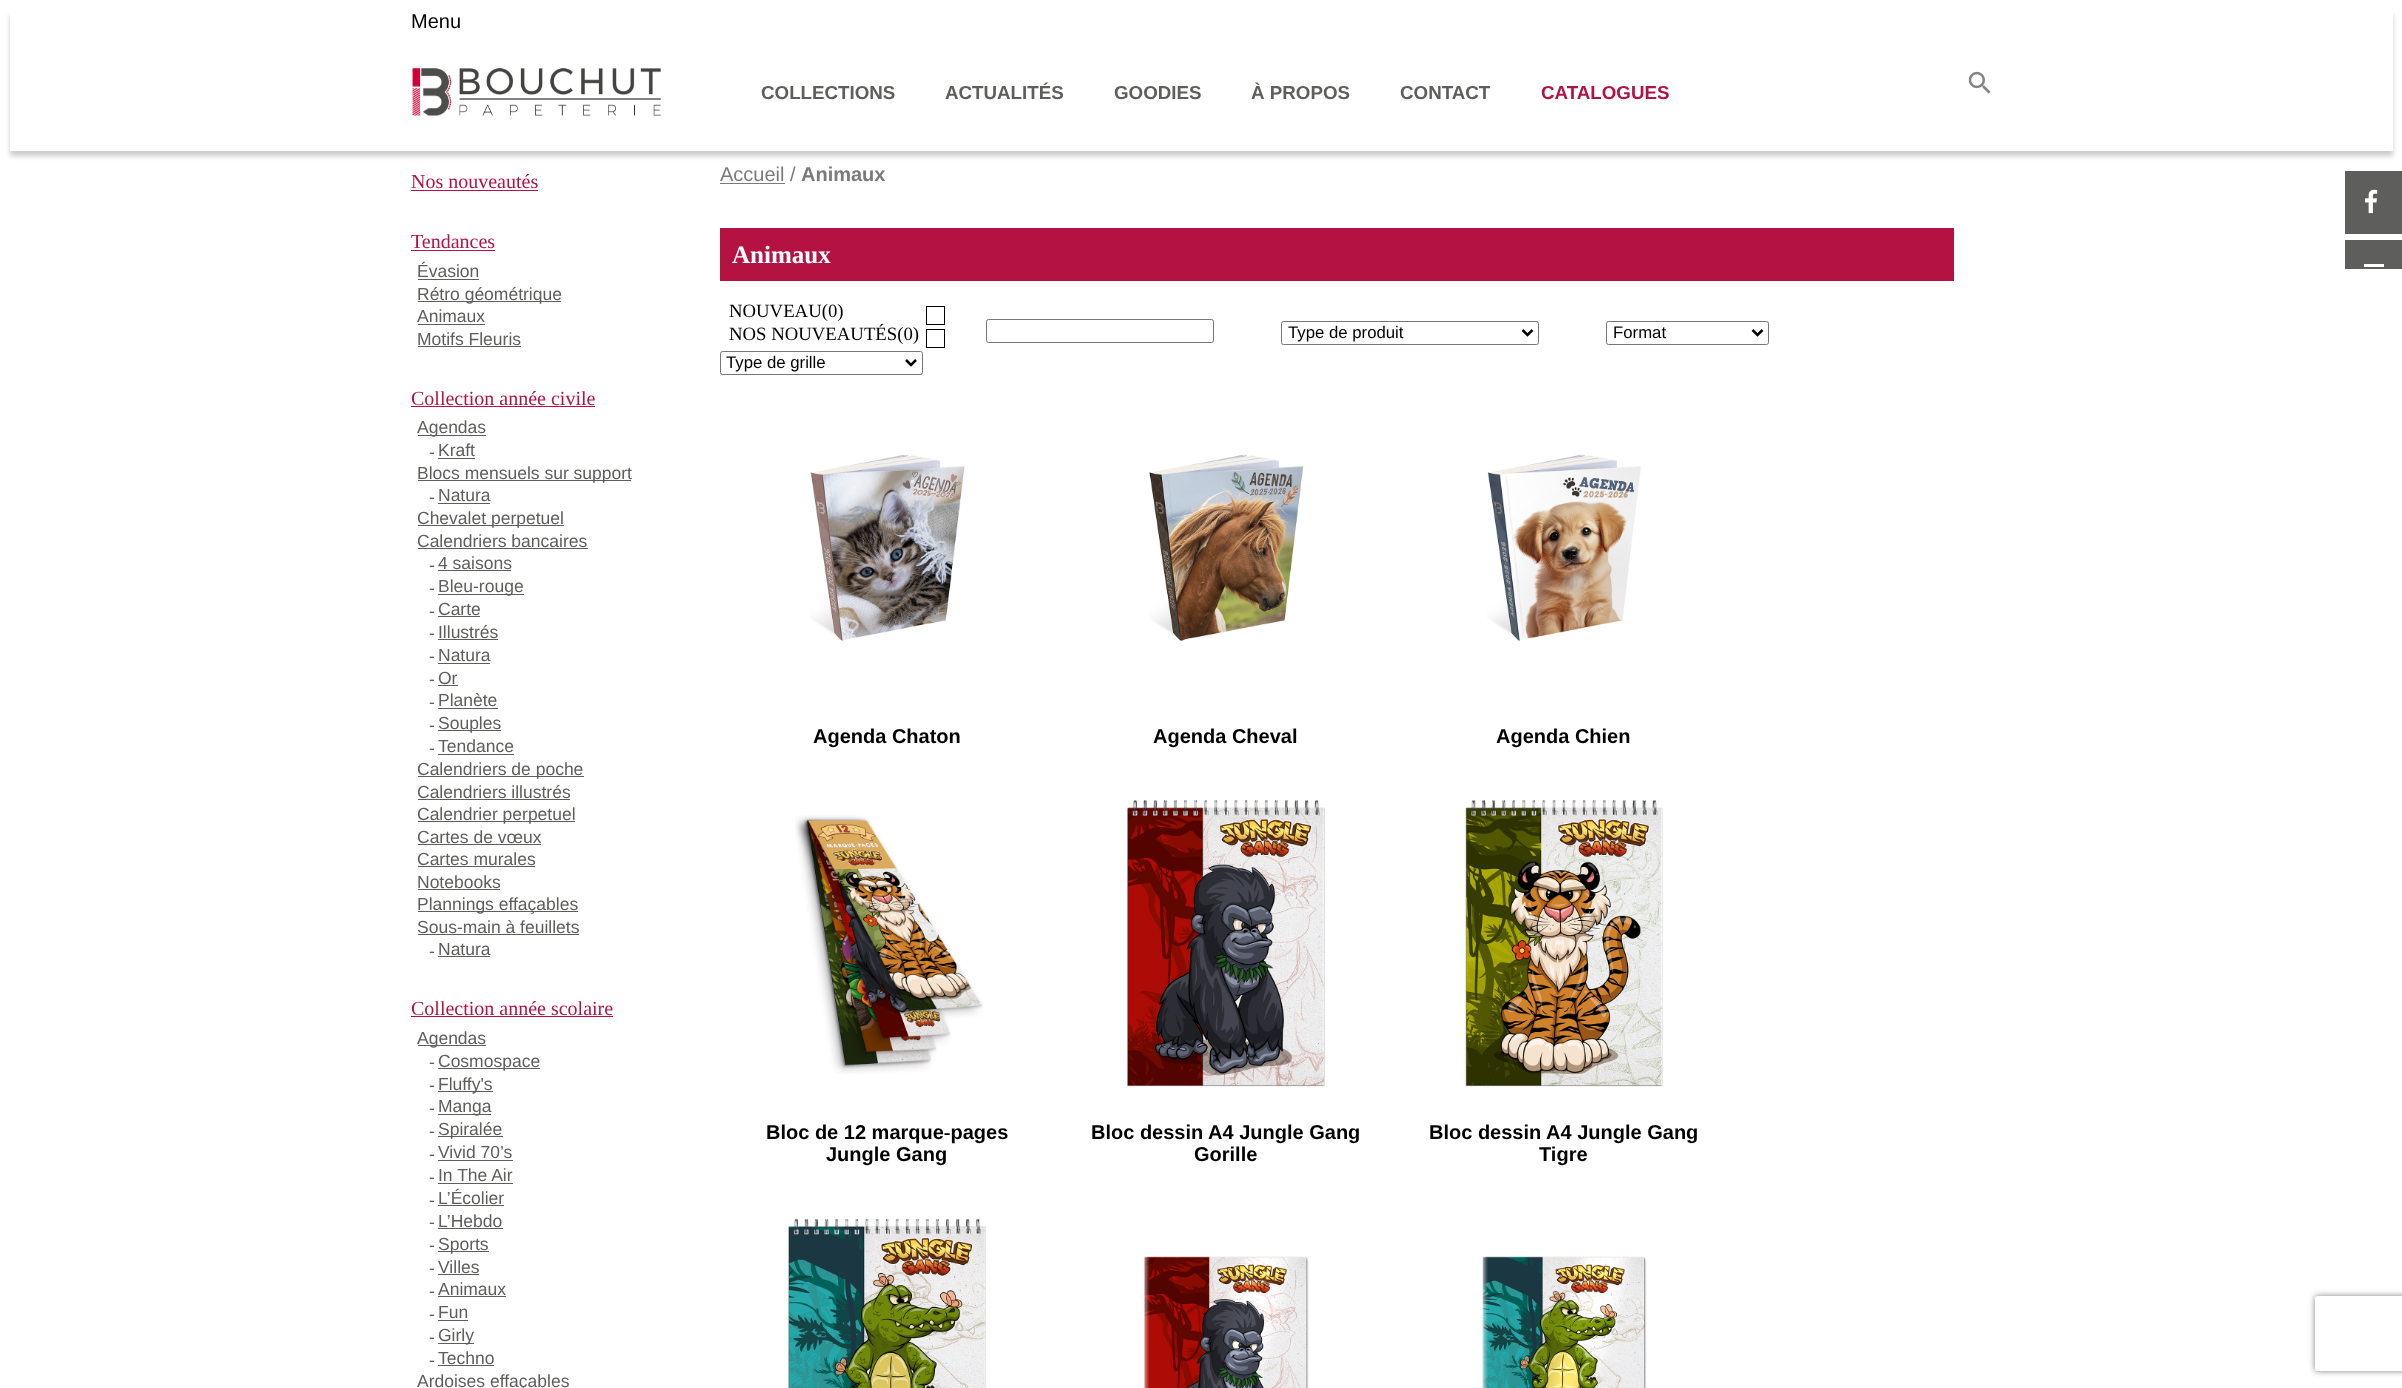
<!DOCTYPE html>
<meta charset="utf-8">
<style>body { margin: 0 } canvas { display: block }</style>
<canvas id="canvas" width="2402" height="1388"></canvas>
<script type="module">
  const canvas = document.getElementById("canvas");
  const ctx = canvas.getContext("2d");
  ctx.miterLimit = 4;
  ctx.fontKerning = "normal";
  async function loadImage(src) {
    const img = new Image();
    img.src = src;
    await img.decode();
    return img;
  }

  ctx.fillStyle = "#ffffff";
  ctx.fillRect(0, 0, 2402, 1388);
  ctx.save();
  ctx.beginPath();
  ctx.moveTo(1, 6);
  ctx.lineTo(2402, 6);
  ctx.lineTo(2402, 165);
  ctx.lineTo(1, 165);
  ctx.closePath();
  ctx.moveTo(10, 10);
  ctx.lineTo(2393, 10);
  ctx.lineTo(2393, 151);
  ctx.lineTo(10, 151);
  ctx.closePath();
  ctx.clip("evenodd");
  ctx.fillStyle = "rgba(0, 0, 0, 0.2)";
  ctx.filter = "blur(2.5px)";
  ctx.beginPath();
  ctx.rect(10, 15, 2383, 141);
  ctx.fill();
  ctx.filter = "none";
  ctx.restore();
  ctx.font = "20px Liberation Sans";
  ctx.fillStyle = "#000000";
  ctx.fillText("Menu", 411, 28);
  ctx.drawImage(await loadImage("img1.png"), 412, 68, 249, 48);
  ctx.font = "bold 18.75px Liberation Sans";
  ctx.fillStyle = "#5e5e5d";
  ctx.fillText("COLLECTIONS", 761, 99);
  ctx.fillText("ACTUALITÉS", 945, 99);
  ctx.fillText("GOODIES", 1114, 99);
  ctx.fillText("À PROPOS", 1251, 99);
  ctx.fillText("CONTACT", 1400, 99);
  ctx.fillStyle = "#b41243";
  ctx.fillText("CATALOGUES", 1541, 99);
  ctx.drawImage(await loadImage("img2.png"), 1968, 71, 23, 23);
  ctx.font = "20px Liberation Serif";
  ctx.fillText("Nos nouveautés", 411, 188);
  ctx.fillRect(411, 190, 127, 1);
  ctx.fillText("Tendances", 411, 248);
  ctx.fillRect(411, 250, 84, 1);
  ctx.font = "17.5px Liberation Sans";
  ctx.fillStyle = "#5e5e5d";
  ctx.fillText("Évasion", 417, 277);
  ctx.fillRect(418, 279, 61, 1);
  ctx.fillRect(418, 301, 143, 1);
  ctx.fillText("Rétro géométrique", 417, 300);
  ctx.fillText("Animaux", 417, 322);
  ctx.fillRect(418, 324, 67, 1);
  ctx.fillText("Motifs Fleuris", 417, 345);
  ctx.fillRect(418, 346, 103, 1);
  ctx.font = "20px Liberation Serif";
  ctx.fillStyle = "#b41243";
  ctx.fillText("Collection année civile", 411, 405);
  ctx.fillRect(411, 406, 184, 1);
  ctx.fillStyle = "#5e5e5d";
  ctx.fillRect(418, 435, 68, 1);
  ctx.font = "17.5px Liberation Sans";
  ctx.fillText("Agendas", 417, 433);
  ctx.fillText("-", 429, 458);
  ctx.fillText("Kraft", 438, 456);
  ctx.fillRect(438, 458, 37, 1);
  ctx.fillRect(418, 480, 213, 1);
  ctx.fillText("Blocs mensuels sur support", 417, 479);
  ctx.fillText("-", 429, 503);
  ctx.fillText("Natura", 438, 501);
  ctx.fillRect(438, 503, 52, 1);
  ctx.fillRect(418, 525, 146, 1);
  ctx.fillText("Chevalet perpetuel", 417, 524);
  ctx.fillText("Calendriers bancaires", 417, 547);
  ctx.fillRect(418, 548, 170, 1);
  ctx.fillText("-", 429, 571);
  ctx.fillText("4 saisons", 438, 569);
  ctx.fillRect(438, 570, 73, 1);
  ctx.fillText("-", 429, 594);
  ctx.fillRect(438, 594, 86, 1);
  ctx.fillText("Bleu-rouge", 438, 592);
  ctx.fillText("-", 429, 617);
  ctx.fillText("Carte", 438, 615);
  ctx.fillRect(438, 616, 42, 1);
  ctx.fillText("-", 429, 639);
  ctx.fillText("Illustrés", 438, 638);
  ctx.fillRect(438, 639, 60, 1);
  ctx.fillText("-", 429, 662);
  ctx.fillText("Natura", 438, 661);
  ctx.fillRect(438, 663, 52, 1);
  ctx.fillText("-", 429, 685);
  ctx.fillText("Or", 438, 684);
  ctx.fillRect(438, 685, 20, 1);
  ctx.fillText("-", 429, 708);
  ctx.fillText("Planète", 438, 706);
  ctx.fillRect(438, 708, 60, 1);
  ctx.fillText("-", 429, 731);
  ctx.fillRect(438, 730, 63, 1);
  ctx.fillText("Souples", 438, 729);
  ctx.fillText("-", 429, 754);
  ctx.fillText("Tendance", 438, 752);
  ctx.fillRect(438, 754, 76, 1);
  ctx.fillRect(418, 776, 166, 1);
  ctx.fillText("Calendriers de poche", 417, 775);
  ctx.fillText("Calendriers illustrés", 417, 798);
  ctx.fillRect(418, 799, 152, 1);
  ctx.fillRect(418, 821, 157, 1);
  ctx.fillText("Calendrier perpetuel", 417, 820);
  ctx.fillText("Cartes de vœux", 417, 843);
  ctx.fillRect(418, 844, 123, 1);
  ctx.fillText("Cartes murales", 417, 865);
  ctx.fillRect(418, 866, 117, 1);
  ctx.fillText("Notebooks", 417, 888);
  ctx.fillRect(418, 889, 82, 1);
  ctx.fillRect(418, 911, 160, 1);
  ctx.fillText("Plannings effaçables", 417, 910);
  ctx.fillText("Sous-main à feuillets", 417, 933);
  ctx.fillRect(418, 934, 161, 1);
  ctx.fillText("-", 429, 957);
  ctx.fillText("Natura", 438, 955);
  ctx.fillRect(438, 956, 52, 1);
  ctx.font = "20px Liberation Serif";
  ctx.fillStyle = "#b41243";
  ctx.fillText("Collection année scolaire", 411, 1015);
  ctx.fillRect(411, 1016, 202, 1);
  ctx.fillStyle = "#5e5e5d";
  ctx.fillRect(418, 1045, 68, 1);
  ctx.font = "17.5px Liberation Sans";
  ctx.fillText("Agendas", 417, 1044);
  ctx.fillText("-", 429, 1068);
  ctx.fillRect(438, 1068, 102, 1);
  ctx.fillText("Cosmospace", 438, 1067);
  ctx.fillText("-", 429, 1091);
  ctx.fillRect(438, 1091, 55, 1);
  ctx.fillText("Fluffy's", 438, 1090);
  ctx.fillText("-", 429, 1114);
  ctx.fillRect(438, 1114, 53, 1);
  ctx.fillText("Manga", 438, 1112);
  ctx.fillText("-", 429, 1137);
  ctx.fillRect(438, 1136, 65, 1);
  ctx.fillText("Spiralée", 438, 1135);
  ctx.fillText("-", 429, 1160);
  ctx.fillText("Vivid 70’s", 438, 1158);
  ctx.fillRect(438, 1160, 75, 1);
  ctx.fillText("-", 429, 1183);
  ctx.fillText("In The Air", 438, 1181);
  ctx.fillRect(438, 1183, 75, 1);
  ctx.fillText("-", 429, 1206);
  ctx.fillText("L’Écolier", 438, 1204);
  ctx.fillRect(438, 1205, 66, 1);
  ctx.fillText("-", 429, 1228);
  ctx.fillText("L’Hebdo", 438, 1227);
  ctx.fillRect(438, 1228, 65, 1);
  ctx.fillText("-", 429, 1251);
  ctx.fillRect(438, 1251, 51, 1);
  ctx.fillText("Sports", 438, 1250);
  ctx.fillText("-", 429, 1274);
  ctx.fillText("Villes", 438, 1273);
  ctx.fillRect(438, 1274, 41, 1);
  ctx.fillText("-", 429, 1297);
  ctx.fillText("Animaux", 438, 1295);
  ctx.fillRect(438, 1296, 68, 1);
  ctx.fillText("-", 429, 1320);
  ctx.fillText("Fun", 438, 1318);
  ctx.fillRect(438, 1320, 30, 1);
  ctx.fillText("-", 429, 1343);
  ctx.fillRect(438, 1343, 36, 1);
  ctx.fillText("Girly", 438, 1341);
  ctx.fillText("-", 429, 1366);
  ctx.fillText("Techno", 438, 1364);
  ctx.fillRect(438, 1365, 56, 1);
  ctx.fillText("Ardoises effaçables", 417, 1387);
  ctx.font = "20px Liberation Sans";
  ctx.fillStyle = "#7a7a7a";
  ctx.fillText("Accueil /", 720, 181);
  ctx.fillRect(720, 183, 65, 1);
  ctx.font = "bold 20px Liberation Sans";
  ctx.fillText("Animaux", 801, 181);
  ctx.fillStyle = "#b41243";
  ctx.fillRect(720, 228, 1234, 53);
  ctx.font = "bold 25px Liberation Serif";
  ctx.fillStyle = "#ffffff";
  ctx.fillText("Animaux", 732, 263);
  ctx.font = "18.75px Liberation Serif";
  ctx.fillStyle = "#000000";
  ctx.fillText("NOUVEAU(0)", 729, 317);
  ctx.strokeStyle = "#000000";
  ctx.strokeRect(926.5, 306.5, 18, 18);
  ctx.fillText("NOS NOUVEAUTÉS(0)", 729, 340);
  ctx.strokeRect(926.5, 329.5, 18, 18);
  ctx.beginPath();
  ctx.roundRect(986.5, 319.5, 227, 23, 2);
  ctx.strokeStyle = "#767676";
  ctx.stroke();
  ctx.beginPath();
  ctx.roundRect(1281.5, 321.5, 257, 23, 2);
  ctx.stroke();
  ctx.beginPath();
  ctx.moveTo(1522.5, 330);
  ctx.lineTo(1527.5, 335);
  ctx.lineTo(1532.5, 330);
  ctx.strokeStyle = "#000000";
  ctx.lineWidth = 2.5;
  ctx.stroke();
  ctx.font = "16.75px Liberation Sans";
  ctx.fillText("Type de produit", 1288, 338);
  ctx.beginPath();
  ctx.roundRect(1606.5, 321.5, 162, 23, 2);
  ctx.strokeStyle = "#767676";
  ctx.lineWidth = 1;
  ctx.stroke();
  ctx.beginPath();
  ctx.moveTo(1752.5, 330);
  ctx.lineTo(1757.5, 335);
  ctx.lineTo(1762.5, 330);
  ctx.strokeStyle = "#000000";
  ctx.lineWidth = 2.5;
  ctx.stroke();
  ctx.fillText("Format", 1613, 338);
  ctx.beginPath();
  ctx.roundRect(720.5, 351.5, 202, 23, 2);
  ctx.strokeStyle = "#767676";
  ctx.lineWidth = 1;
  ctx.stroke();
  ctx.beginPath();
  ctx.moveTo(906, 360);
  ctx.lineTo(911, 365);
  ctx.lineTo(916, 360);
  ctx.strokeStyle = "#000000";
  ctx.lineWidth = 2.5;
  ctx.stroke();
  ctx.fillText("Type de grille", 726, 368);
  ctx.drawImage(await loadImage("img3.png"), 810, 454, 155, 187);
  ctx.font = "bold 20px Liberation Sans";
  ctx.fillText("Agenda Chaton", 813, 743);
  ctx.drawImage(await loadImage("img4.png"), 1149, 454, 155, 187);
  ctx.fillText("Agenda Cheval", 1153, 743);
  ctx.drawImage(await loadImage("img5.png"), 1487, 454, 154, 187);
  ctx.fillText("Agenda Chien", 1496, 743);
  ctx.drawImage(await loadImage("img6.png"), 795, 815, 188, 259);
  ctx.fillText("Bloc de 12 marque‑pages", 766, 1139);
  ctx.fillText("Jungle Gang", 826, 1161);
  ctx.drawImage(await loadImage("img7.png"), 1127, 800, 198, 287);
  ctx.fillText("Bloc dessin A4 Jungle Gang", 1091, 1139);
  ctx.fillText("Gorille", 1194, 1161);
  ctx.drawImage(await loadImage("img8.png"), 1465, 800, 198, 287);
  ctx.fillText("Bloc dessin A4 Jungle Gang", 1429, 1139);
  ctx.fillText("Tigre", 1539, 1161);
  ctx.drawImage(await loadImage("img9.png"), 788, 1219, 198, 169);
  ctx.drawImage(await loadImage("img10.png"), 1144, 1256, 165, 132);
  ctx.drawImage(await loadImage("img11.png"), 1482, 1256, 165, 132);
  ctx.fillStyle = "#5e5e5d";
  ctx.fillRect(2345, 171, 57, 63);
  ctx.drawImage(await loadImage("img12.png"), 2365, 189, 13, 25);
  ctx.fillRect(2345, 240, 57, 29);
  ctx.fillStyle = "#ffffff";
  ctx.fillRect(2364, 264, 20, 3);
  ctx.save();
  ctx.beginPath();
  ctx.moveTo(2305, 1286);
  ctx.lineTo(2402, 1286);
  ctx.lineTo(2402, 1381);
  ctx.lineTo(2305, 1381);
  ctx.closePath();
  ctx.moveTo(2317.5, 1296);
  ctx.lineTo(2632.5, 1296);
  ctx.bezierCurveTo(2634, 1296, 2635, 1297, 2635, 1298.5);
  ctx.lineTo(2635, 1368.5);
  ctx.bezierCurveTo(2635, 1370, 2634, 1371, 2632.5, 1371);
  ctx.lineTo(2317.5, 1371);
  ctx.bezierCurveTo(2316, 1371, 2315, 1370, 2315, 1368.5);
  ctx.lineTo(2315, 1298.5);
  ctx.bezierCurveTo(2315, 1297, 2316, 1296, 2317.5, 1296);
  ctx.closePath();
  ctx.clip("evenodd");
  ctx.fillStyle = "#808080";
  ctx.filter = "blur(3px)";
  ctx.beginPath();
  ctx.roundRect(2315, 1296, 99, 75, 2.5);
  ctx.fill();
  ctx.filter = "none";
  ctx.restore();
</script>
